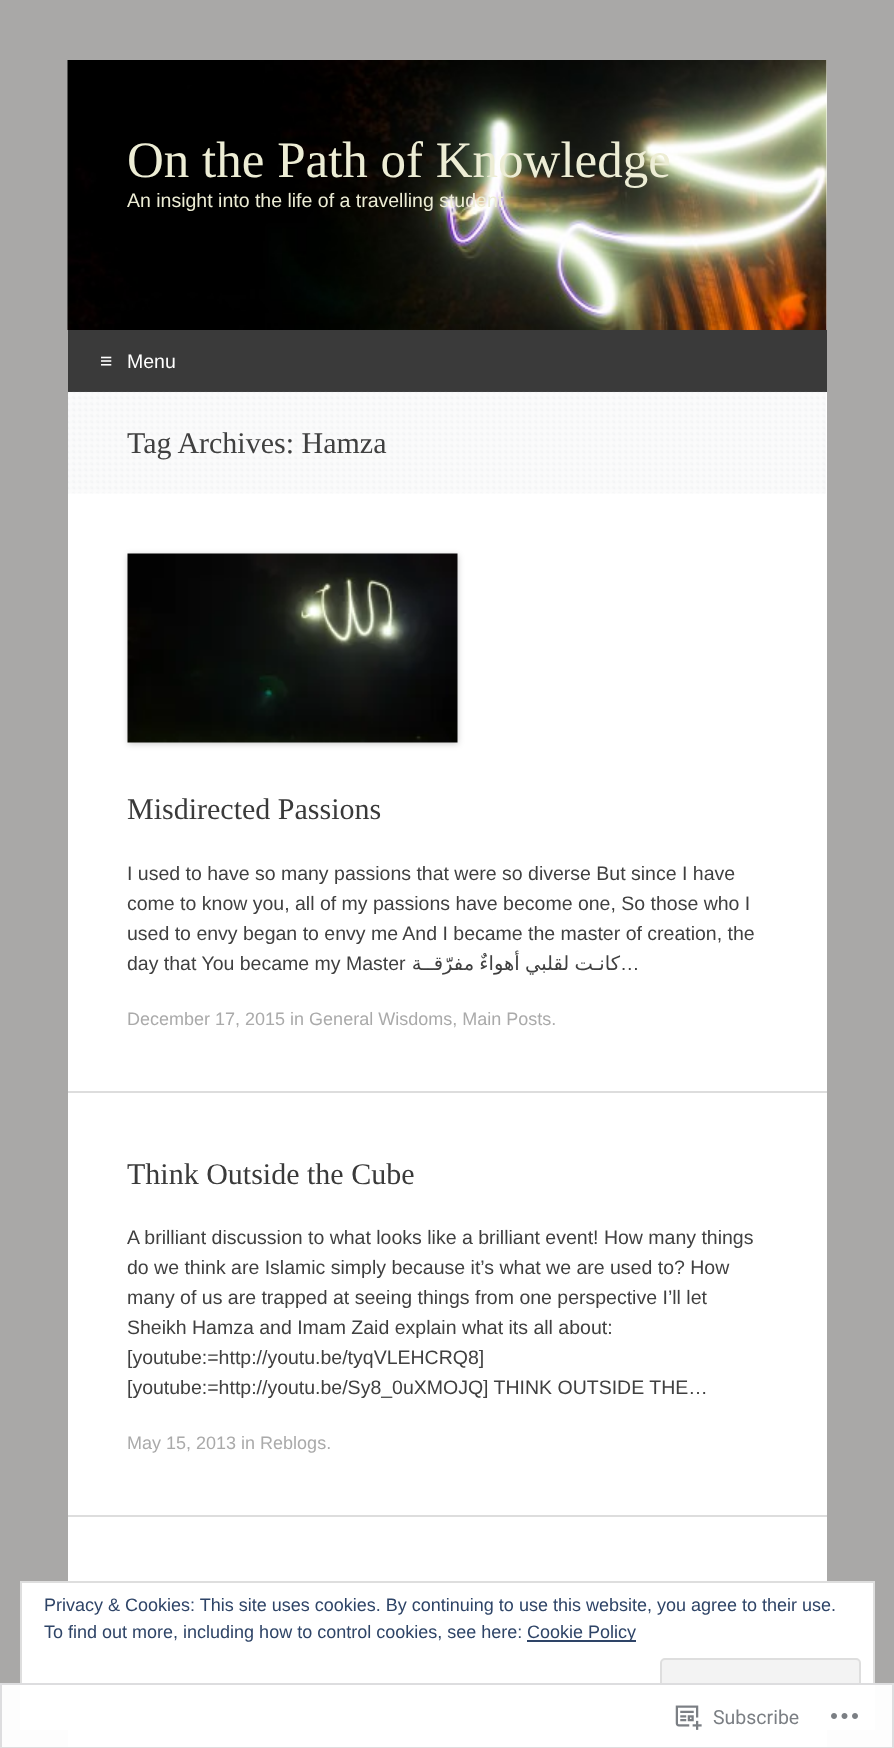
<!DOCTYPE html>
<meta charset="utf-8">
<style>body { margin: 0 } canvas { display: block }</style>
<canvas id="canvas" width="894" height="1748"></canvas>
<script type="module">
  const canvas = document.getElementById("canvas");
  const ctx = canvas.getContext("2d");
  ctx.miterLimit = 4;
  ctx.fontKerning = "normal";
  async function loadImage(src) {
    const img = new Image();
    img.src = src;
    await img.decode();
    return img;
  }

  ctx.fillStyle = "#a9a8a7";
  ctx.fillRect(0, 0, 894, 1748);
  ctx.fillStyle = "#ffffff";
  ctx.fillRect(68, 60, 759, 1688);
  ctx.drawImage(await loadImage("img1.png"), 67, 60, 760, 270);
  ctx.font = "51px Liberation Serif";
  ctx.fillStyle = "#ededd5";
  ctx.fillText("On the Path of Knowledge", 127, 177);
  ctx.font = "19.5px Liberation Sans";
  ctx.fillText("An insight into the life of a travelling student", 127, 207);
  ctx.fillStyle = "#3a3a3a";
  ctx.fillRect(68, 330, 759, 62);
  ctx.font = "21px Liberation Sans";
  ctx.fillStyle = "#ffffff";
  ctx.fillText("≡", 100, 368);
  ctx.font = "19.5px Liberation Sans";
  ctx.fillText("Menu", 127, 368);
  ctx.drawImage(await loadImage("img2.png"), 68, 391, 758, 103);
  ctx.font = "30px Liberation Serif";
  ctx.fillStyle = "#404040";
  ctx.fillText("Tag Archives: Hamza", 127, 453);
  ctx.fillStyle = "#dddddd";
  ctx.fillRect(68, 1091, 759, 2);
  ctx.fillStyle = "rgba(0, 0, 0, 0.2)";
  ctx.filter = "blur(3px)";
  ctx.beginPath();
  ctx.rect(128, 555, 330, 189);
  ctx.fill();
  ctx.filter = "none";
  ctx.drawImage(await loadImage("img3.png"), 127, 553, 331, 190);
  ctx.fillStyle = "#3a3a3a";
  ctx.fillText("Misdirected Passions", 127, 819);
  ctx.font = "19.5px Liberation Sans";
  ctx.fillStyle = "#404040";
  ctx.fillText("I used to have so many passions that were so diverse But since I have", 127, 880);
  ctx.fillText("come to know you, all of my passions have become one, So those who I", 127, 910);
  ctx.fillText("used to envy began to envy me And I became the master of creation, the", 127, 940);
  ctx.fillText("day that You became my Master", 127, 970);
  ctx.wordSpacing = "-1px";
  ctx.direction = "rtl";
  ctx.font = "19.5px DejaVu Sans";
  ctx.fillText("كانـت لقلبي أهواءٌ مفرّقــة", 620, 970);
  ctx.wordSpacing = "0px";
  ctx.direction = "ltr";
  ctx.font = "19.5px Liberation Sans";
  ctx.fillText("…", 620, 970);
  ctx.font = "18px Liberation Sans";
  ctx.fillStyle = "#aaaaaa";
  ctx.fillText("December 17, 2015 in General Wisdoms, Main Posts.", 127, 1025);
  ctx.fillStyle = "#dddddd";
  ctx.fillRect(68, 1515, 759, 2);
  ctx.font = "30px Liberation Serif";
  ctx.fillStyle = "#3a3a3a";
  ctx.fillText("Think Outside the Cube", 127, 1184);
  ctx.font = "19.5px Liberation Sans";
  ctx.fillStyle = "#404040";
  ctx.fillText("A brilliant discussion to what looks like a brilliant event! How many things", 127, 1244);
  ctx.fillText("do we think are Islamic simply because it’s what we are used to? How", 127, 1274);
  ctx.fillText("many of us are trapped at seeing things from one perspective I’ll let", 127, 1304);
  ctx.fillText("Sheikh Hamza and Imam Zaid explain what its all about:", 127, 1334);
  ctx.fillText("[youtube:=http://youtu.be/tyqVLEHCRQ8]", 127, 1364);
  ctx.fillText("[youtube:=http://youtu.be/Sy8_0uXMOJQ] THINK OUTSIDE THE…", 127, 1394);
  ctx.font = "18px Liberation Sans";
  ctx.fillStyle = "#aaaaaa";
  ctx.fillText("May 15, 2013 in Reblogs.", 127, 1449);
  ctx.fillStyle = "#ffffff";
  ctx.beginPath();
  ctx.rect(21, 1582, 853, 147);
  ctx.fill();
  ctx.strokeStyle = "#dedede";
  ctx.lineWidth = 2;
  ctx.stroke();
  ctx.fillStyle = "#2e4467";
  ctx.fillText("Privacy & Cookies: This site uses cookies. By continuing to use this website, you agree to their use.", 44, 1611);
  ctx.fillText("To find out more, including how to control cookies, see here:", 44, 1638);
  ctx.fillRect(527, 1640, 109, 2);
  ctx.fillText("Cookie Policy", 527, 1638);
  ctx.fillStyle = "#f3f3f3";
  ctx.beginPath();
  ctx.roundRect(661, 1659, 199, 56, 4);
  ctx.fill();
  ctx.stroke();
  ctx.fillStyle = "rgba(255, 255, 255, 0.98)";
  ctx.fillRect(0, 1683, 894, 65);
  ctx.strokeStyle = "rgba(220, 220, 222, 0.98)";
  ctx.strokeRect(1, 1684, 892, 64);
  ctx.drawImage(await loadImage("img4.png"), 675, 1705, 27, 25);
  ctx.font = "19.5px Roboto";
  ctx.fillStyle = "#7b7f84";
  ctx.fillText("Subscribe", 713, 1724);
  ctx.drawImage(await loadImage("img5.png"), 831, 1713, 27, 6);
</script>
